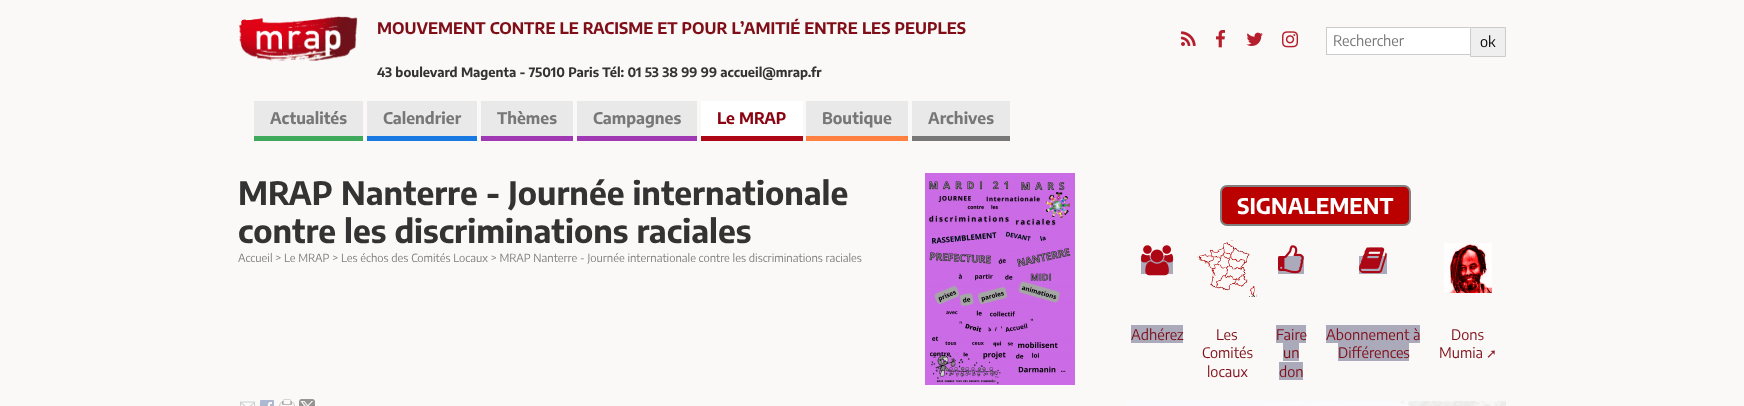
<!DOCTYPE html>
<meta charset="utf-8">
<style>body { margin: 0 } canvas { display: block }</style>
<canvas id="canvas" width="1744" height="406"></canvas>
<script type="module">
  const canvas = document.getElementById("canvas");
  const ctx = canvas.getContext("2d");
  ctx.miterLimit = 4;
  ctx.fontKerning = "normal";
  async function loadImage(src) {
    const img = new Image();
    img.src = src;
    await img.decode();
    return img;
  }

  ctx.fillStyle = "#faf9f7";
  ctx.fillRect(0, 0, 1744, 406);
  ctx.drawImage(await loadImage("img1.png"), 238, 16, 120, 45);
  ctx.font = "bold 16px Encode Sans";
  ctx.fillStyle = "#800e18";
  ctx.fillText("MOUVEMENT CONTRE LE RACISME ET POUR L’AMITIÉ ENTRE LES PEUPLES", 377, 34);
  ctx.font = "bold 13px Encode Sans";
  ctx.fillStyle = "#333333";
  ctx.fillText("43 boulevard Magenta - 75010 Paris Tél: 01 53 38 99 99 accueil@mrap.fr", 377, 77);
  ctx.drawImage(await loadImage("img2.png"), 1181, 31, 15, 15);
  ctx.drawImage(await loadImage("img3.png"), 1216, 30, 9, 18);
  ctx.drawImage(await loadImage("img4.png"), 1246, 32, 17, 14);
  ctx.drawImage(await loadImage("img5.png"), 1282, 31, 17, 17);
  ctx.fillStyle = "#ffffff";
  ctx.fillRect(1327, 28, 143, 26);
  ctx.fillStyle = "#cccccc";
  ctx.fillRect(1326, 27, 144, 1);
  ctx.fillRect(1326, 54, 144, 1);
  ctx.fillRect(1326, 27, 1, 28);
  ctx.font = "14.5px Encode Sans";
  ctx.fillStyle = "#777777";
  ctx.fillText("Rechercher", 1333, 46);
  ctx.fillStyle = "#efefef";
  ctx.beginPath();
  ctx.rect(1470.5, 27.5, 35, 29);
  ctx.fill();
  ctx.strokeStyle = "#cccccc";
  ctx.stroke();
  ctx.fillStyle = "#000000";
  ctx.fillText("ok", 1480, 47);
  ctx.fillStyle = "#e9e9e9";
  ctx.fillRect(254, 101, 109, 35);
  ctx.fillStyle = "#3fa95b";
  ctx.fillRect(254, 136, 109, 5);
  ctx.font = "bold 16px Encode Sans";
  ctx.fillStyle = "#777777";
  ctx.fillText("Actualités", 270, 124);
  ctx.fillStyle = "#e9e9e9";
  ctx.fillRect(367, 101, 110, 35);
  ctx.fillStyle = "#1979e2";
  ctx.fillRect(367, 136, 110, 5);
  ctx.fillStyle = "#777777";
  ctx.fillText("Calendrier", 383, 124);
  ctx.fillStyle = "#e9e9e9";
  ctx.fillRect(481, 101, 92, 35);
  ctx.fillStyle = "#a138b3";
  ctx.fillRect(481, 136, 92, 5);
  ctx.fillStyle = "#777777";
  ctx.fillText("Thèmes", 497, 124);
  ctx.fillStyle = "#e9e9e9";
  ctx.fillRect(577, 101, 120, 35);
  ctx.fillStyle = "#a138b3";
  ctx.fillRect(577, 136, 120, 5);
  ctx.fillStyle = "#777777";
  ctx.fillText("Campagnes", 593, 124);
  ctx.fillStyle = "#ffffff";
  ctx.fillRect(701, 101, 102, 35);
  ctx.fillStyle = "#ad0716";
  ctx.fillRect(701, 136, 102, 5);
  ctx.fillStyle = "#8a0511";
  ctx.fillText("Le MRAP", 717, 124);
  ctx.fillStyle = "#e9e9e9";
  ctx.fillRect(806, 101, 102, 35);
  ctx.fillStyle = "#ff8040";
  ctx.fillRect(806, 136, 102, 5);
  ctx.fillStyle = "#777777";
  ctx.fillText("Boutique", 822, 124);
  ctx.fillStyle = "#e9e9e9";
  ctx.fillRect(912, 101, 98, 35);
  ctx.fillStyle = "#777777";
  ctx.fillRect(912, 136, 98, 5);
  ctx.fillText("Archives", 928, 124);
  ctx.font = "bold 32px Encode Sans";
  ctx.fillStyle = "#333333";
  ctx.fillText("MRAP Nanterre - Journée internationale", 238, 205);
  ctx.drawImage(await loadImage("img6.png"), 925, 173, 150, 212);
  ctx.fillText("contre les discriminations raciales", 238, 243);
  ctx.font = "11.2px Encode Sans";
  ctx.fillStyle = "#808080";
  ctx.fillText("Accueil > Le MRAP > Les échos des Comités Locaux > MRAP Nanterre - Journée internationale contre les discriminations raciales", 238, 262);
  ctx.drawImage(await loadImage("img7.png"), 240, 401, 15, 5);
  ctx.drawImage(await loadImage("img8.png"), 260, 400, 14, 6);
  ctx.drawImage(await loadImage("img9.png"), 279, 399, 16, 7);
  ctx.drawImage(await loadImage("img10.png"), 299, 399, 16, 7);
  ctx.fillStyle = "#bb0000";
  ctx.beginPath();
  ctx.roundRect(1221, 186, 189, 39, 6);
  ctx.fill();
  ctx.strokeStyle = "#808080";
  ctx.lineWidth = 2;
  ctx.stroke();
  ctx.font = "bold 21.5px Encode Sans";
  ctx.fillStyle = "#ffffff";
  ctx.fillText("SIGNALEMENT", 1237, 214);
  ctx.fillStyle = "#aaaabb";
  ctx.fillRect(1141, 256, 32, 18);
  ctx.drawImage(await loadImage("img11.png"), 1141, 245, 33, 31);
  ctx.drawImage(await loadImage("img12.png"), 1197, 240, 60, 57);
  ctx.fillRect(1278, 256, 26, 18);
  ctx.drawImage(await loadImage("img13.png"), 1278, 245, 26, 29);
  ctx.fillRect(1359, 256, 28, 18);
  ctx.drawImage(await loadImage("img14.png"), 1359, 247, 28, 27);
  ctx.drawImage(await loadImage("img15.png"), 1444, 243, 48, 50);
  ctx.fillRect(1131, 325, 52, 18);
  ctx.font = "14.5px Encode Sans";
  ctx.fillStyle = "#800e18";
  ctx.fillText("Adhérez", 1131, 340);
  ctx.fillText("Les", 1216, 340);
  ctx.fillText("Comités", 1202, 358);
  ctx.fillText("locaux", 1207, 377);
  ctx.fillStyle = "#aaaabb";
  ctx.fillRect(1276, 325, 30, 18);
  ctx.fillStyle = "#800e18";
  ctx.fillText("Faire", 1276, 340);
  ctx.fillStyle = "#aaaabb";
  ctx.fillRect(1283, 343, 16, 18);
  ctx.fillStyle = "#800e18";
  ctx.fillText("un", 1283, 358);
  ctx.fillStyle = "#aaaabb";
  ctx.fillRect(1279, 362, 24, 18);
  ctx.fillStyle = "#800e18";
  ctx.fillText("don", 1279, 377);
  ctx.fillStyle = "#aaaabb";
  ctx.fillRect(1326, 325, 94, 18);
  ctx.fillStyle = "#800e18";
  ctx.fillText("Abonnement à", 1326, 340);
  ctx.fillStyle = "#aaaabb";
  ctx.fillRect(1338, 343, 71, 18);
  ctx.fillStyle = "#800e18";
  ctx.fillText("Différences", 1338, 358);
  ctx.fillText("Dons", 1451, 340);
  ctx.fillText("Mumia", 1439, 358);
  ctx.font = "13px DejaVu Sans";
  ctx.fillStyle = "#8c262e";
  ctx.fillText("➚", 1486, 358);
  ctx.drawImage(await loadImage("img16.png"), 1126, 401, 380, 5);
</script>
